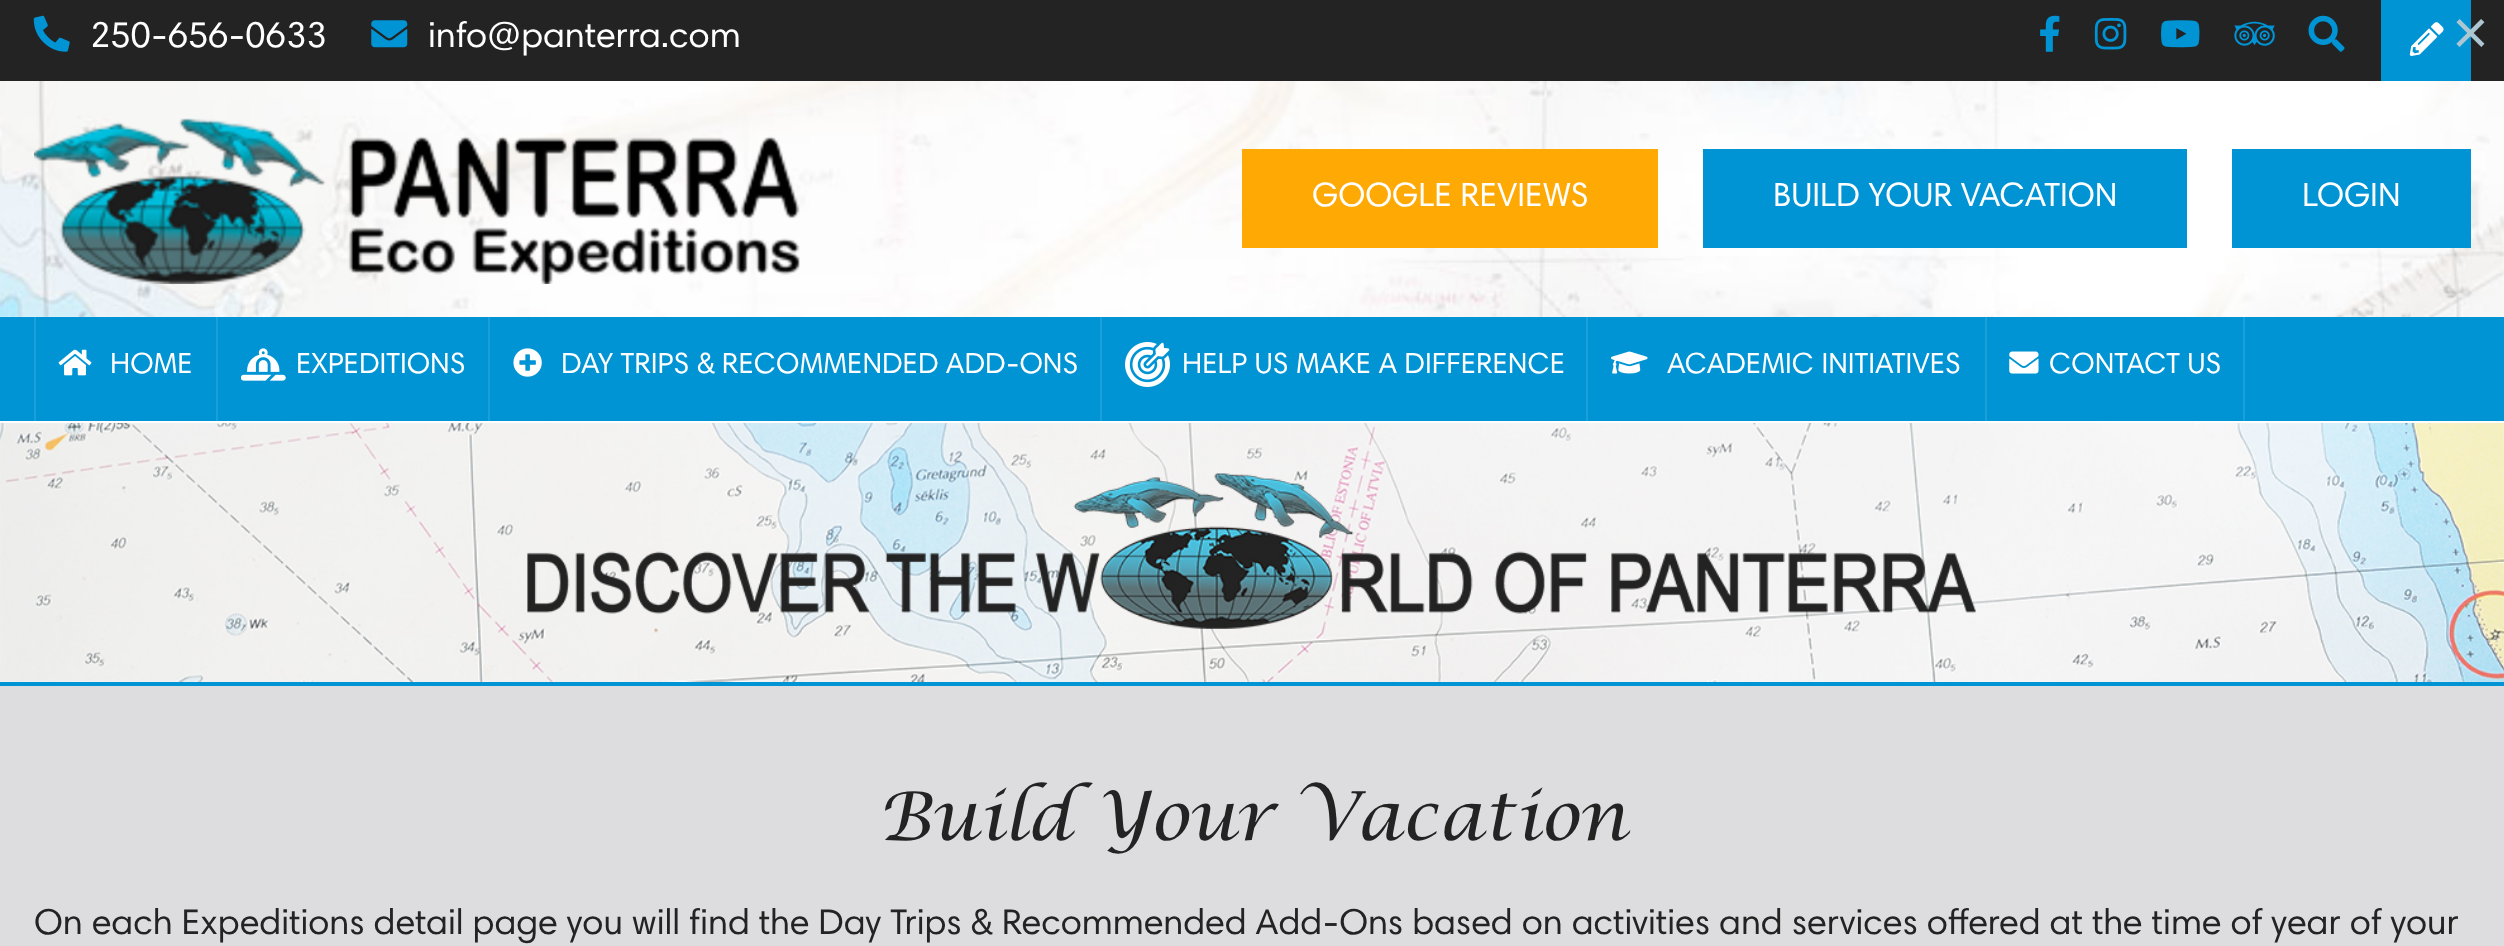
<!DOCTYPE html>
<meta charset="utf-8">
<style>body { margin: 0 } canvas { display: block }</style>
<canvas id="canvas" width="2504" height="946"></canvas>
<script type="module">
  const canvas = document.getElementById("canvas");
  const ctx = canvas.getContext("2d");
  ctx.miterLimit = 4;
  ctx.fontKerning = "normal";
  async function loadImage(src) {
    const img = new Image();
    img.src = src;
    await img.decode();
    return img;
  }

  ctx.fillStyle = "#ffffff";
  ctx.fillRect(0, 0, 2504, 946);
  ctx.fillStyle = "#232323";
  ctx.fillRect(0, 0, 2504, 81);
  ctx.drawImage(await loadImage("img1.png"), 33, 15, 37, 37);
  ctx.font = "36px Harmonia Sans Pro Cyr";
  ctx.fillStyle = "#ffffff";
  ctx.fillText("250-656-0633", 90, 47);
  ctx.drawImage(await loadImage("img2.png"), 371, 20, 37, 28);
  ctx.fillText("info@panterra.com", 428, 47);
  ctx.drawImage(await loadImage("img3.png"), 2040, 15, 20, 37);
  ctx.drawImage(await loadImage("img4.png"), 2094, 18, 33, 32);
  ctx.drawImage(await loadImage("img5.png"), 2161, 20, 39, 28);
  ctx.drawImage(await loadImage("img6.png"), 2234, 21, 41, 25);
  ctx.drawImage(await loadImage("img7.png"), 2308, 15, 37, 37);
  ctx.fillStyle = "#0094d5";
  ctx.fillRect(2381, 0, 90, 81);
  ctx.drawImage(await loadImage("img8.png"), 2409, 22, 35, 34);
  ctx.drawImage(await loadImage("img9.png"), 0, 81, 2504, 236);
  ctx.drawImage(await loadImage("img10.png"), 34, 118, 766, 166);
  ctx.fillStyle = "#ffa904";
  ctx.fillRect(1242, 149, 416, 99);
  ctx.font = "33.75px Harmonia Sans Pro Cyr";
  ctx.fillStyle = "#ffffff";
  ctx.fillText("GOOGLE REVIEWS", 1312, 206);
  ctx.fillStyle = "#0094d5";
  ctx.fillRect(1703, 149, 484, 99);
  ctx.fillStyle = "#ffffff";
  ctx.fillText("BUILD YOUR VACATION", 1773, 206);
  ctx.fillStyle = "#0094d5";
  ctx.fillRect(2232, 149, 239, 99);
  ctx.fillStyle = "#ffffff";
  ctx.fillText("LOGIN", 2302, 206);
  ctx.fillStyle = "#0094d5";
  ctx.fillRect(0, 317, 2504, 104);
  ctx.fillStyle = "#1a9fd9";
  ctx.fillRect(216, 317, 2, 104);
  ctx.fillRect(34, 317, 2, 104);
  ctx.drawImage(await loadImage("img11.png"), 58, 349, 34, 27);
  ctx.font = "29.25px Harmonia Sans Pro Cyr";
  ctx.fillStyle = "#ffffff";
  ctx.fillText("HOME", 110, 373);
  ctx.fillStyle = "#1a9fd9";
  ctx.fillRect(488, 317, 2, 104);
  ctx.drawImage(await loadImage("img12.png"), 241, 348, 45, 33);
  ctx.fillStyle = "#ffffff";
  ctx.fillText("EXPEDITIONS", 296, 373);
  ctx.fillStyle = "#1a9fd9";
  ctx.fillRect(1100, 317, 2, 104);
  ctx.drawImage(await loadImage("img13.png"), 513, 348, 29, 29);
  ctx.fillStyle = "#ffffff";
  ctx.fillText("DAY TRIPS & RECOMMENDED ADD-ONS", 561, 373);
  ctx.fillStyle = "#1a9fd9";
  ctx.fillRect(1586, 317, 2, 104);
  ctx.drawImage(await loadImage("img14.png"), 1125, 342, 45, 45);
  ctx.fillStyle = "#ffffff";
  ctx.fillText("HELP US MAKE A DIFFERENCE", 1182, 373);
  ctx.fillStyle = "#1a9fd9";
  ctx.fillRect(1985, 317, 2, 104);
  ctx.drawImage(await loadImage("img15.png"), 1611, 351, 37, 23);
  ctx.fillStyle = "#ffffff";
  ctx.fillText("ACADEMIC INITIATIVES", 1667, 373);
  ctx.fillStyle = "#1a9fd9";
  ctx.fillRect(2243, 317, 2, 104);
  ctx.drawImage(await loadImage("img16.png"), 2009, 351, 30, 23);
  ctx.fillStyle = "#ffffff";
  ctx.fillText("CONTACT US", 2049, 373);
  ctx.font = "63px Liberation Sans";
  ctx.fillStyle = "#acc6d2";
  ctx.fillText("×", 2452, 54);
  ctx.drawImage(await loadImage("img17.png"), 0, 423, 2504, 259);
  ctx.fillStyle = "#0094d5";
  ctx.fillRect(0, 682, 2504, 4);
  ctx.drawImage(await loadImage("img18.png"), 179, 681, 2325, 1);
  ctx.fillStyle = "#dddcdf";
  ctx.fillRect(0, 686, 2504, 260);
  ctx.font = "italic 67.5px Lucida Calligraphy";
  ctx.fillStyle = "#232323";
  ctx.fillText("Build Your Vacation", 878, 840);
  ctx.font = "36px Harmonia Sans Pro Cyr";
  ctx.fillText("On each Expeditions detail page you will find the Day Trips & Recommended Add-Ons based on activities and services offered at the time of year of your", 34, 934);
</script>
